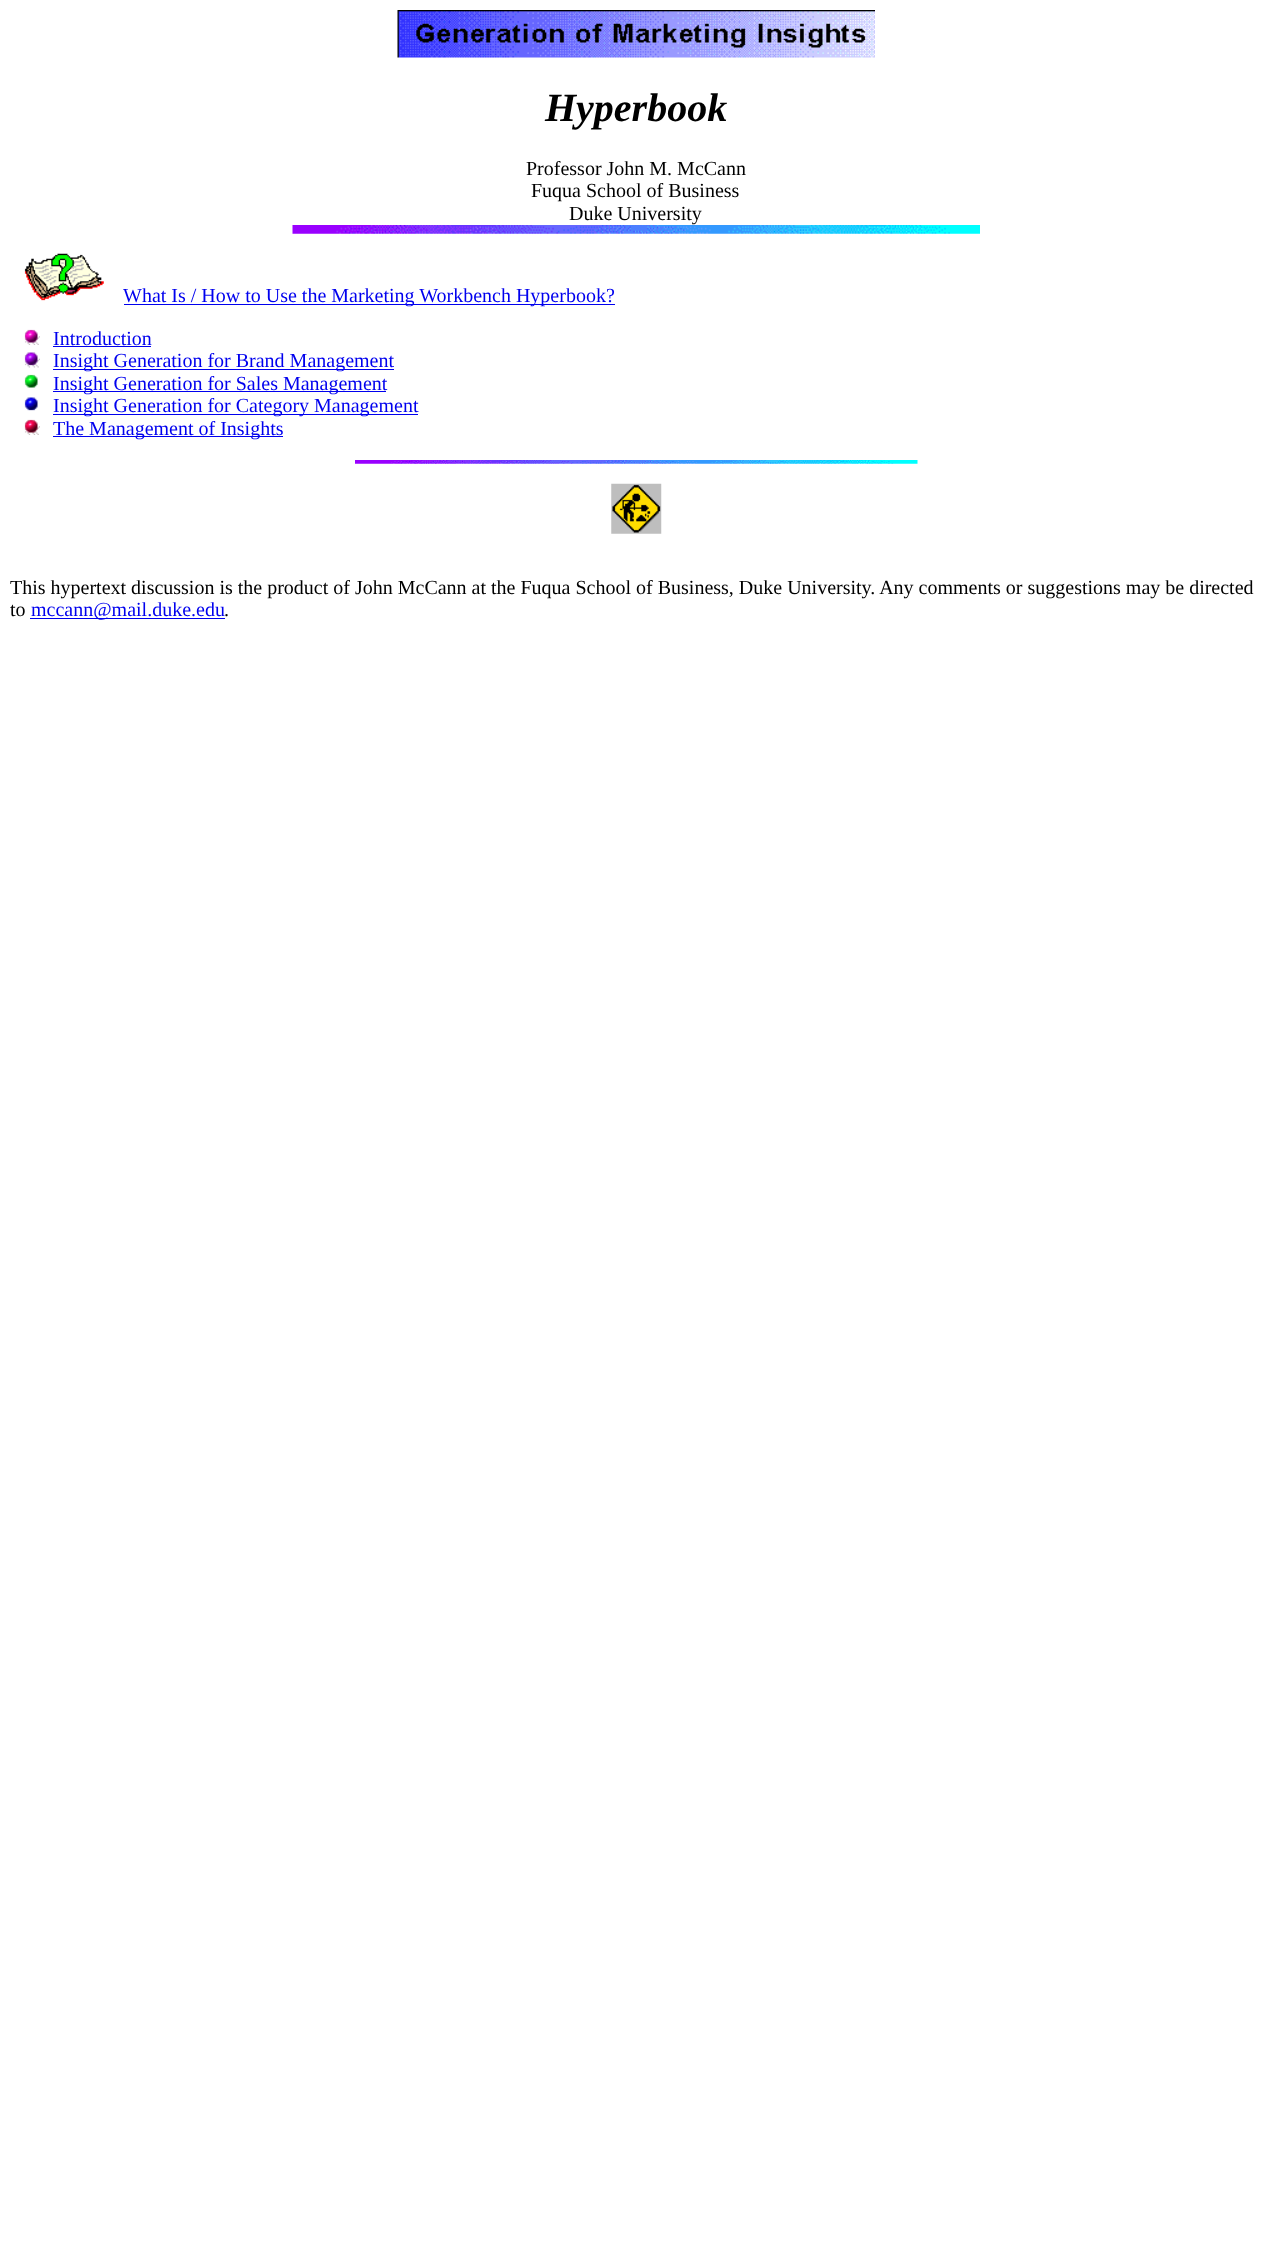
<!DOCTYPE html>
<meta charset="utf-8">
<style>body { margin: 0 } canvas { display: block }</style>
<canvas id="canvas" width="1271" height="2242"></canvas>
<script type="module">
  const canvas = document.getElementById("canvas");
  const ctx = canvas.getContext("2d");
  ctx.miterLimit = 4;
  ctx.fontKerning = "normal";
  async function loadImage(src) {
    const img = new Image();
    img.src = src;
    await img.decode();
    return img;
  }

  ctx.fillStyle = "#ffffff";
  ctx.fillRect(0, 0, 1271, 2242);
  ctx.drawImage(await loadImage("img1.png"), 397, 10, 478, 48);
  ctx.font = "italic bold 40px Liberation Serif";
  ctx.fillStyle = "#000000";
  ctx.fillText("Hyperbook", 545, 121);
  ctx.font = "20px Liberation Serif";
  ctx.fillText("Professor John M. McCann", 526, 175);
  ctx.fillText("Fuqua School of Business", 531, 197);
  ctx.fillText("Duke University", 569, 220);
  ctx.drawImage(await loadImage("img2.png"), 292, 225, 688, 9);
  ctx.drawImage(await loadImage("img3.png"), 24, 253, 80, 48);
  ctx.fillStyle = "#0000ee";
  ctx.fillRect(124, 304, 491, 1);
  ctx.fillText("What Is / How to Use the Marketing Workbench Hyperbook?", 123, 302);
  ctx.drawImage(await loadImage("img4.png"), 24, 329, 16, 16);
  ctx.fillText("Introduction", 53, 345);
  ctx.fillRect(53, 346, 98, 1);
  ctx.drawImage(await loadImage("img5.png"), 24, 352, 16, 16);
  ctx.fillRect(53, 369, 341, 1);
  ctx.fillText("Insight Generation for Brand Management", 53, 367);
  ctx.drawImage(await loadImage("img6.png"), 24, 374, 14, 14);
  ctx.fillRect(53, 391, 333, 1);
  ctx.fillText("Insight Generation for Sales Management", 53, 390);
  ctx.drawImage(await loadImage("img7.png"), 24, 397, 14, 14);
  ctx.fillRect(53, 414, 365, 1);
  ctx.fillText("Insight Generation for Category Management", 53, 412);
  ctx.drawImage(await loadImage("img8.png"), 24, 419, 16, 16);
  ctx.fillRect(53, 436, 230, 1);
  ctx.fillText("The Management of Insights", 53, 435);
  ctx.drawImage(await loadImage("img9.png"), 355, 460, 563, 4);
  ctx.drawImage(await loadImage("img10.png"), 611, 483, 51, 51);
  ctx.fillStyle = "#000000";
  ctx.fillText("This hypertext discussion is the product of John McCann at the Fuqua School of Business, Duke University. Any comments or suggestions may be directed", 10, 594);
  ctx.fillText("to", 10, 616);
  ctx.fillStyle = "#0000ee";
  ctx.fillRect(30, 618, 195, 1);
  ctx.fillText("mccann@mail.duke.edu", 31, 616);
  ctx.fillStyle = "#000000";
  ctx.fillText(".", 224, 616);
</script>
